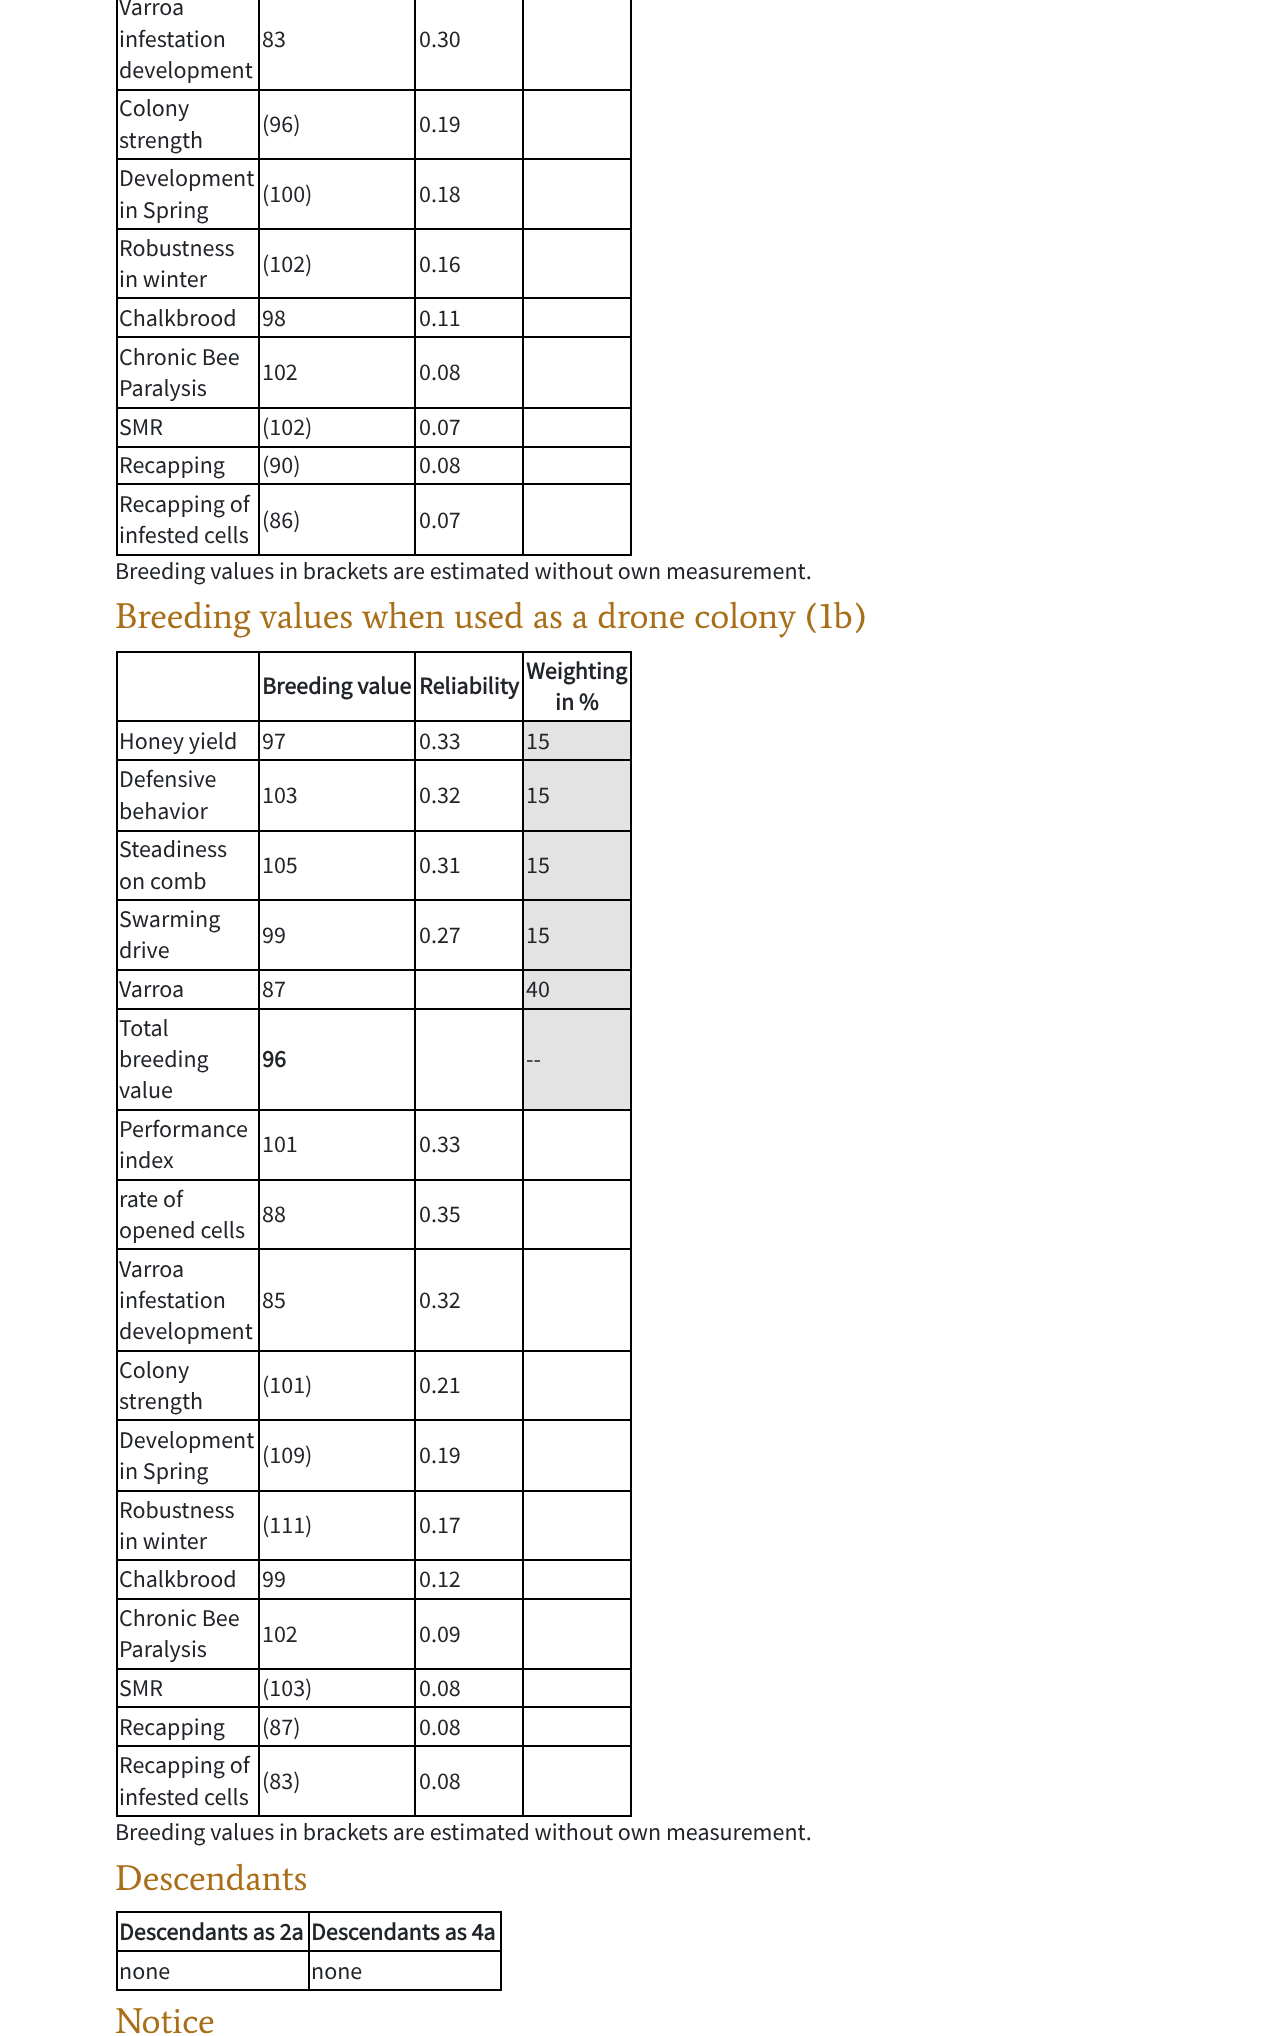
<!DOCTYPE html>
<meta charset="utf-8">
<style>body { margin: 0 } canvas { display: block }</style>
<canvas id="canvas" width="1264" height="2036"></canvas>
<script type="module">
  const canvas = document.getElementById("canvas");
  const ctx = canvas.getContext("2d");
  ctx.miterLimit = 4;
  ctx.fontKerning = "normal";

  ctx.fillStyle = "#ffffff";
  ctx.fillRect(0, 0, 1264, 2036);
  ctx.fillStyle = "#000000";
  ctx.fillRect(630, 0, 2, 555);
  ctx.fillRect(116, 554, 516, 2);
  ctx.fillRect(116, 0, 2, 555);
  ctx.font = "24px Source Sans Pro";
  ctx.fillStyle = "#212529";
  ctx.fillText("Varroa", 119, 15);
  ctx.fillText("infestation", 119, 47);
  ctx.fillText("development", 119, 78);
  ctx.fillStyle = "#000000";
  ctx.fillRect(522, 89, 110, 2);
  ctx.fillRect(522, 158, 110, 2);
  ctx.fillRect(522, 228, 110, 2);
  ctx.fillRect(522, 297, 110, 2);
  ctx.fillRect(522, 336, 110, 2);
  ctx.fillRect(522, 407, 110, 2);
  ctx.fillRect(522, 446, 110, 2);
  ctx.fillRect(522, 483, 110, 2);
  ctx.fillRect(522, 483, 2, 72);
  ctx.fillRect(414, 483, 110, 2);
  ctx.fillRect(522, 446, 2, 39);
  ctx.fillRect(414, 446, 110, 2);
  ctx.fillRect(522, 407, 2, 40);
  ctx.fillRect(414, 407, 110, 2);
  ctx.fillRect(522, 336, 2, 72);
  ctx.fillRect(414, 336, 110, 2);
  ctx.fillRect(522, 297, 2, 41);
  ctx.fillRect(414, 297, 110, 2);
  ctx.fillRect(522, 228, 2, 71);
  ctx.fillRect(414, 228, 110, 2);
  ctx.fillRect(522, 158, 2, 72);
  ctx.fillRect(414, 158, 110, 2);
  ctx.fillRect(522, 89, 2, 70);
  ctx.fillRect(414, 89, 110, 2);
  ctx.fillRect(414, 483, 2, 72);
  ctx.fillRect(258, 483, 158, 2);
  ctx.fillRect(414, 446, 2, 39);
  ctx.fillRect(258, 446, 158, 2);
  ctx.fillRect(414, 407, 2, 40);
  ctx.fillRect(258, 407, 158, 2);
  ctx.fillRect(414, 336, 2, 72);
  ctx.fillRect(258, 336, 158, 2);
  ctx.fillRect(414, 297, 2, 41);
  ctx.fillRect(258, 297, 158, 2);
  ctx.fillRect(414, 228, 2, 71);
  ctx.fillRect(258, 228, 158, 2);
  ctx.fillRect(414, 158, 2, 72);
  ctx.fillRect(258, 158, 158, 2);
  ctx.fillRect(414, 89, 2, 70);
  ctx.fillRect(258, 89, 158, 2);
  ctx.fillRect(258, 483, 2, 72);
  ctx.fillRect(116, 483, 144, 2);
  ctx.fillRect(258, 446, 2, 39);
  ctx.fillRect(116, 446, 144, 2);
  ctx.fillRect(258, 407, 2, 40);
  ctx.fillRect(116, 407, 144, 2);
  ctx.fillRect(258, 336, 2, 72);
  ctx.fillRect(116, 336, 144, 2);
  ctx.fillRect(258, 297, 2, 41);
  ctx.fillRect(116, 297, 144, 2);
  ctx.fillRect(258, 228, 2, 71);
  ctx.fillRect(116, 228, 144, 2);
  ctx.fillRect(258, 158, 2, 72);
  ctx.fillRect(116, 158, 144, 2);
  ctx.fillRect(258, 89, 2, 70);
  ctx.fillRect(116, 89, 144, 2);
  ctx.fillRect(258, 0, 2, 90);
  ctx.fillStyle = "#212529";
  ctx.fillText("83", 262, 47);
  ctx.fillStyle = "#000000";
  ctx.fillRect(414, 0, 2, 90);
  ctx.fillStyle = "#212529";
  ctx.fillText("0.30", 419, 47);
  ctx.fillStyle = "#000000";
  ctx.fillRect(522, 0, 2, 90);
  ctx.fillStyle = "#212529";
  ctx.fillText("Colony", 119, 116);
  ctx.fillText("strength", 119, 148);
  ctx.fillText("(96)", 262, 132);
  ctx.fillText("0.19", 419, 132);
  ctx.fillText("Development", 119, 186);
  ctx.fillText("in Spring", 119, 218);
  ctx.fillText("(100)", 262, 202);
  ctx.fillText("0.18", 419, 202);
  ctx.fillText("Robustness", 119, 256);
  ctx.fillText("in winter", 119, 287);
  ctx.fillText("(102)", 262, 272);
  ctx.fillText("0.16", 419, 272);
  ctx.fillText("Chalkbrood", 119, 326);
  ctx.fillText("98", 262, 326);
  ctx.fillText("0.11", 419, 326);
  ctx.fillText("Chronic Bee", 119, 365);
  ctx.fillText("Paralysis", 119, 396);
  ctx.fillText("102", 262, 380);
  ctx.fillText("0.08", 419, 380);
  ctx.fillText("SMR", 119, 435);
  ctx.fillText("(102)", 262, 435);
  ctx.fillText("0.07", 419, 435);
  ctx.fillText("Recapping", 119, 473);
  ctx.fillText("(90)", 262, 473);
  ctx.fillText("0.08", 419, 473);
  ctx.fillText("Recapping of", 119, 512);
  ctx.fillText("infested cells", 119, 543);
  ctx.fillText("(86)", 262, 528);
  ctx.fillText("0.07", 419, 528);
  ctx.fillText("Breeding values in brackets are estimated without own measurement.", 115, 579);
  ctx.font = "36px Average";
  ctx.fillStyle = "#a96f18";
  ctx.fillText("Breeding values when used as a drone colony (1b)", 115, 628);
  ctx.fillStyle = "#000000";
  ctx.fillRect(116, 651, 516, 2);
  ctx.fillRect(630, 651, 2, 1166);
  ctx.fillRect(116, 1815, 516, 2);
  ctx.fillRect(116, 651, 2, 1166);
  ctx.fillRect(522, 720, 110, 2);
  ctx.fillRect(522, 759, 110, 2);
  ctx.fillRect(522, 830, 110, 2);
  ctx.fillRect(522, 899, 110, 2);
  ctx.fillRect(522, 969, 110, 2);
  ctx.fillRect(522, 1008, 110, 2);
  ctx.fillRect(522, 1109, 110, 2);
  ctx.fillRect(522, 1179, 110, 2);
  ctx.fillRect(522, 1248, 110, 2);
  ctx.fillRect(522, 1350, 110, 2);
  ctx.fillRect(522, 1419, 110, 2);
  ctx.fillRect(522, 1490, 110, 2);
  ctx.fillRect(522, 1559, 110, 2);
  ctx.fillRect(522, 1598, 110, 2);
  ctx.fillRect(522, 1668, 110, 2);
  ctx.fillRect(522, 1706, 110, 2);
  ctx.fillRect(522, 1745, 110, 2);
  ctx.fillRect(522, 1745, 2, 72);
  ctx.fillRect(414, 1745, 110, 2);
  ctx.fillRect(522, 1706, 2, 40);
  ctx.fillRect(414, 1706, 110, 2);
  ctx.fillRect(522, 1668, 2, 39);
  ctx.fillRect(414, 1668, 110, 2);
  ctx.fillRect(522, 1598, 2, 72);
  ctx.fillRect(414, 1598, 110, 2);
  ctx.fillRect(522, 1559, 2, 40);
  ctx.fillRect(414, 1559, 110, 2);
  ctx.fillRect(522, 1490, 2, 70);
  ctx.fillRect(414, 1490, 110, 2);
  ctx.fillRect(522, 1419, 2, 72);
  ctx.fillRect(414, 1419, 110, 2);
  ctx.fillRect(522, 1350, 2, 71);
  ctx.fillRect(414, 1350, 110, 2);
  ctx.fillRect(522, 1248, 2, 104);
  ctx.fillRect(414, 1248, 110, 2);
  ctx.fillRect(522, 1179, 2, 71);
  ctx.fillRect(414, 1179, 110, 2);
  ctx.fillRect(522, 1109, 2, 72);
  ctx.fillRect(414, 1109, 110, 2);
  ctx.fillRect(522, 1008, 2, 102);
  ctx.fillRect(414, 1008, 110, 2);
  ctx.fillRect(522, 969, 2, 41);
  ctx.fillRect(414, 969, 110, 2);
  ctx.fillRect(522, 899, 2, 72);
  ctx.fillRect(414, 899, 110, 2);
  ctx.fillRect(522, 830, 2, 70);
  ctx.fillRect(414, 830, 110, 2);
  ctx.fillRect(522, 759, 2, 72);
  ctx.fillRect(414, 759, 110, 2);
  ctx.fillRect(522, 720, 2, 41);
  ctx.fillRect(414, 720, 110, 2);
  ctx.fillRect(414, 1745, 2, 72);
  ctx.fillRect(258, 1745, 158, 2);
  ctx.fillRect(414, 1706, 2, 40);
  ctx.fillRect(258, 1706, 158, 2);
  ctx.fillRect(414, 1668, 2, 39);
  ctx.fillRect(258, 1668, 158, 2);
  ctx.fillRect(414, 1598, 2, 72);
  ctx.fillRect(258, 1598, 158, 2);
  ctx.fillRect(414, 1559, 2, 40);
  ctx.fillRect(258, 1559, 158, 2);
  ctx.fillRect(414, 1490, 2, 70);
  ctx.fillRect(258, 1490, 158, 2);
  ctx.fillRect(414, 1419, 2, 72);
  ctx.fillRect(258, 1419, 158, 2);
  ctx.fillRect(414, 1350, 2, 71);
  ctx.fillRect(258, 1350, 158, 2);
  ctx.fillRect(414, 1248, 2, 104);
  ctx.fillRect(258, 1248, 158, 2);
  ctx.fillRect(414, 1179, 2, 71);
  ctx.fillRect(258, 1179, 158, 2);
  ctx.fillRect(414, 1109, 2, 72);
  ctx.fillRect(258, 1109, 158, 2);
  ctx.fillRect(414, 1008, 2, 102);
  ctx.fillRect(258, 1008, 158, 2);
  ctx.fillRect(414, 969, 2, 41);
  ctx.fillRect(258, 969, 158, 2);
  ctx.fillRect(414, 899, 2, 72);
  ctx.fillRect(258, 899, 158, 2);
  ctx.fillRect(414, 830, 2, 70);
  ctx.fillRect(258, 830, 158, 2);
  ctx.fillRect(414, 759, 2, 72);
  ctx.fillRect(258, 759, 158, 2);
  ctx.fillRect(414, 720, 2, 41);
  ctx.fillRect(258, 720, 158, 2);
  ctx.fillRect(258, 1745, 2, 72);
  ctx.fillRect(116, 1745, 144, 2);
  ctx.fillRect(258, 1706, 2, 40);
  ctx.fillRect(116, 1706, 144, 2);
  ctx.fillRect(258, 1668, 2, 39);
  ctx.fillRect(116, 1668, 144, 2);
  ctx.fillRect(258, 1598, 2, 72);
  ctx.fillRect(116, 1598, 144, 2);
  ctx.fillRect(258, 1559, 2, 40);
  ctx.fillRect(116, 1559, 144, 2);
  ctx.fillRect(258, 1490, 2, 70);
  ctx.fillRect(116, 1490, 144, 2);
  ctx.fillRect(258, 1419, 2, 72);
  ctx.fillRect(116, 1419, 144, 2);
  ctx.fillRect(258, 1350, 2, 71);
  ctx.fillRect(116, 1350, 144, 2);
  ctx.fillRect(258, 1248, 2, 104);
  ctx.fillRect(116, 1248, 144, 2);
  ctx.fillRect(258, 1179, 2, 71);
  ctx.fillRect(116, 1179, 144, 2);
  ctx.fillRect(258, 1109, 2, 72);
  ctx.fillRect(116, 1109, 144, 2);
  ctx.fillRect(258, 1008, 2, 102);
  ctx.fillRect(116, 1008, 144, 2);
  ctx.fillRect(258, 969, 2, 41);
  ctx.fillRect(116, 969, 144, 2);
  ctx.fillRect(258, 899, 2, 72);
  ctx.fillRect(116, 899, 144, 2);
  ctx.fillRect(258, 830, 2, 70);
  ctx.fillRect(116, 830, 144, 2);
  ctx.fillRect(258, 759, 2, 72);
  ctx.fillRect(116, 759, 144, 2);
  ctx.fillRect(258, 720, 2, 41);
  ctx.fillRect(116, 720, 144, 2);
  ctx.fillRect(258, 651, 2, 71);
  ctx.font = "bold 24px Source Sans Pro";
  ctx.fillStyle = "#212529";
  ctx.fillText("Breeding value", 262, 694);
  ctx.fillStyle = "#000000";
  ctx.fillRect(414, 651, 2, 71);
  ctx.fillStyle = "#212529";
  ctx.fillText("Reliability", 419, 694);
  ctx.fillStyle = "#000000";
  ctx.fillRect(522, 651, 2, 71);
  ctx.fillStyle = "#212529";
  ctx.fillText("Weighting", 526, 679);
  ctx.fillText("in %", 555, 710);
  ctx.font = "24px Source Sans Pro";
  ctx.fillText("Honey yield", 119, 749);
  ctx.fillText("97", 262, 749);
  ctx.fillText("0.33", 419, 749);
  ctx.fillStyle = "#e3e3e3";
  ctx.fillRect(524, 722, 106, 37);
  ctx.fillStyle = "#212529";
  ctx.fillText("15", 526, 749);
  ctx.fillText("Defensive", 119, 787);
  ctx.fillText("behavior", 119, 819);
  ctx.fillText("103", 262, 803);
  ctx.fillText("0.32", 419, 803);
  ctx.fillStyle = "#e3e3e3";
  ctx.fillRect(524, 761, 106, 69);
  ctx.fillStyle = "#212529";
  ctx.fillText("15", 526, 803);
  ctx.fillText("Steadiness", 119, 857);
  ctx.fillText("on comb", 119, 889);
  ctx.fillText("105", 262, 873);
  ctx.fillText("0.31", 419, 873);
  ctx.fillStyle = "#e3e3e3";
  ctx.fillRect(524, 832, 106, 67);
  ctx.fillStyle = "#212529";
  ctx.fillText("15", 526, 873);
  ctx.fillText("Swarming", 119, 927);
  ctx.fillText("drive", 119, 958);
  ctx.fillText("99", 262, 943);
  ctx.fillText("0.27", 419, 943);
  ctx.fillStyle = "#e3e3e3";
  ctx.fillRect(524, 901, 106, 68);
  ctx.fillStyle = "#212529";
  ctx.fillText("15", 526, 943);
  ctx.fillText("Varroa", 119, 997);
  ctx.fillText("87", 262, 997);
  ctx.fillStyle = "#e3e3e3";
  ctx.fillRect(524, 971, 106, 37);
  ctx.fillStyle = "#212529";
  ctx.fillText("40", 526, 997);
  ctx.fillText("Total", 119, 1036);
  ctx.fillText("breeding", 119, 1067);
  ctx.fillText("value", 119, 1098);
  ctx.font = "bold 24px Source Sans Pro";
  ctx.fillText("96", 262, 1067);
  ctx.fillStyle = "#e3e3e3";
  ctx.fillRect(524, 1010, 106, 99);
  ctx.font = "24px Source Sans Pro";
  ctx.fillStyle = "#212529";
  ctx.fillText("--", 526, 1067);
  ctx.fillText("Performance", 119, 1137);
  ctx.fillText("index", 119, 1168);
  ctx.fillText("101", 262, 1152);
  ctx.fillText("0.33", 419, 1152);
  ctx.fillText("rate of", 119, 1207);
  ctx.fillText("opened cells", 119, 1238);
  ctx.fillText("88", 262, 1222);
  ctx.fillText("0.35", 419, 1222);
  ctx.fillText("Varroa", 119, 1277);
  ctx.fillText("infestation", 119, 1308);
  ctx.fillText("development", 119, 1339);
  ctx.fillText("85", 262, 1308);
  ctx.fillText("0.32", 419, 1308);
  ctx.fillText("Colony", 119, 1378);
  ctx.fillText("strength", 119, 1409);
  ctx.fillText("(101)", 262, 1393);
  ctx.fillText("0.21", 419, 1393);
  ctx.fillText("Development", 119, 1448);
  ctx.fillText("in Spring", 119, 1479);
  ctx.fillText("(109)", 262, 1463);
  ctx.fillText("0.19", 419, 1463);
  ctx.fillText("Robustness", 119, 1518);
  ctx.fillText("in winter", 119, 1549);
  ctx.fillText("(111)", 262, 1533);
  ctx.fillText("0.17", 419, 1533);
  ctx.fillText("Chalkbrood", 119, 1587);
  ctx.fillText("99", 262, 1587);
  ctx.fillText("0.12", 419, 1587);
  ctx.fillText("Chronic Bee", 119, 1626);
  ctx.fillText("Paralysis", 119, 1657);
  ctx.fillText("102", 262, 1642);
  ctx.fillText("0.09", 419, 1642);
  ctx.fillText("SMR", 119, 1696);
  ctx.fillText("(103)", 262, 1696);
  ctx.fillText("0.08", 419, 1696);
  ctx.fillText("Recapping", 119, 1735);
  ctx.fillText("(87)", 262, 1735);
  ctx.fillText("0.08", 419, 1735);
  ctx.fillText("Recapping of", 119, 1773);
  ctx.fillText("infested cells", 119, 1805);
  ctx.fillText("(83)", 262, 1789);
  ctx.fillText("0.08", 419, 1789);
  ctx.fillText("Breeding values in brackets are estimated without own measurement.", 115, 1840);
  ctx.font = "36px Average";
  ctx.fillStyle = "#a96f18";
  ctx.fillText("Descendants", 115, 1890);
  ctx.fillStyle = "#000000";
  ctx.fillRect(116, 1911, 385, 2);
  ctx.fillRect(500, 1911, 2, 80);
  ctx.fillRect(116, 1989, 385, 2);
  ctx.fillRect(116, 1911, 2, 80);
  ctx.font = "bold 24px Source Sans Pro";
  ctx.fillStyle = "#212529";
  ctx.fillText("Descendants as 2a", 119, 1940);
  ctx.fillStyle = "#000000";
  ctx.fillRect(308, 1950, 193, 2);
  ctx.fillRect(308, 1950, 2, 41);
  ctx.fillRect(116, 1950, 193, 2);
  ctx.fillRect(308, 1911, 2, 41);
  ctx.fillStyle = "#212529";
  ctx.fillText("Descendants as 4a", 311, 1940);
  ctx.font = "24px Source Sans Pro";
  ctx.fillText("none", 119, 1979);
  ctx.fillText("none", 311, 1979);
  ctx.font = "36px Average";
  ctx.fillStyle = "#a96f18";
  ctx.fillText("Notice", 115, 2033);
</script>
